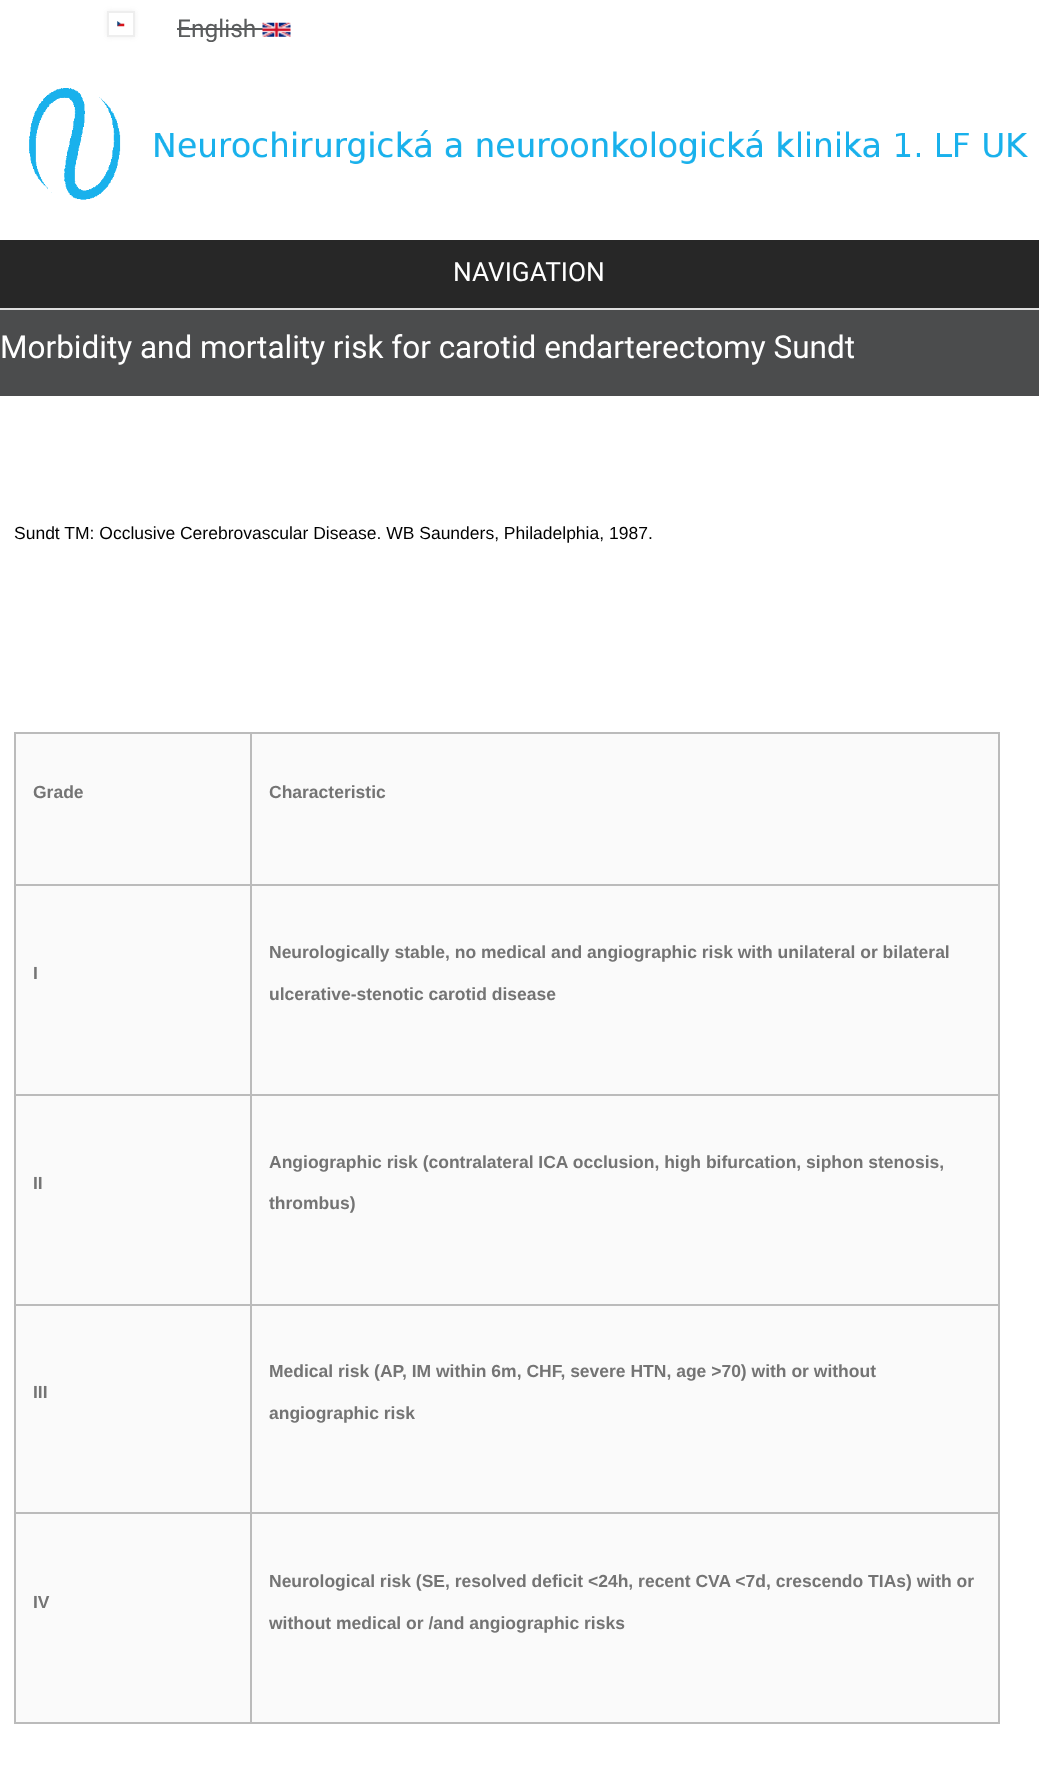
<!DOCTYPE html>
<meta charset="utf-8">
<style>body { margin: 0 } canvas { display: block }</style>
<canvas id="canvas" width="1039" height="1783"></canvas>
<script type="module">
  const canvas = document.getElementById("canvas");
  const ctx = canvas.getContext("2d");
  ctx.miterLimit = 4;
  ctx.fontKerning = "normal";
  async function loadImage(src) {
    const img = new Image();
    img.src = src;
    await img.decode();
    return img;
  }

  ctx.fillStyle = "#ffffff";
  ctx.fillRect(0, 0, 1039, 1783);
  ctx.fillStyle = "#eeeeee";
  ctx.filter = "blur(2.5px)";
  ctx.beginPath();
  ctx.rect(107, 11, 28, 26);
  ctx.fill();
  ctx.filter = "none";
  ctx.fillStyle = "#ffffff";
  ctx.beginPath();
  ctx.rect(108, 12, 26, 24);
  ctx.fill();
  ctx.strokeStyle = "#eeeeee";
  ctx.lineWidth = 2;
  ctx.stroke();
  ctx.drawImage(await loadImage("img1.png"), 117, 21, 8, 6);
  ctx.font = "24.5px Roboto";
  ctx.fillStyle = "#5a5c5d";
  ctx.fillText("English", 177, 37);
  ctx.fillRect(177, 28, 86, 2);
  ctx.drawImage(await loadImage("img2.png"), 262, 22, 29, 15);
  ctx.drawImage(await loadImage("img3.png"), 29, 88, 999, 112);
  ctx.fillStyle = "#272727";
  ctx.fillRect(0, 240, 1039, 68);
  ctx.fillStyle = "#dedede";
  ctx.fillRect(0, 308, 1039, 2);
  ctx.font = "26.25px Roboto";
  ctx.fillStyle = "#ffffff";
  ctx.fillText("NAVIGATION", 453, 281);
  ctx.fillStyle = "#4b4c4d";
  ctx.fillRect(0, 310, 1039, 86);
  ctx.font = "31.5px Roboto";
  ctx.fillStyle = "#ffffff";
  ctx.fillText("Morbidity and mortality risk for carotid endarterectomy Sundt", 0, 358);
  ctx.font = "17.5px Liberation Sans";
  ctx.fillStyle = "#000000";
  ctx.fillText("Sundt TM: Occlusive Cerebrovascular Disease. WB Saunders, Philadelphia, 1987.", 14, 539);
  ctx.fillStyle = "#bbbbbb";
  ctx.fillRect(14, 732, 985, 2);
  ctx.fillRect(998, 732, 2, 992);
  ctx.fillRect(14, 1722, 985, 2);
  ctx.fillRect(14, 732, 2, 992);
  ctx.fillStyle = "#fafafa";
  ctx.fillRect(16, 734, 234, 150);
  ctx.fillStyle = "#bbbbbb";
  ctx.fillRect(250, 1512, 2, 212);
  ctx.fillRect(250, 1512, 749, 2);
  ctx.fillRect(250, 1304, 2, 210);
  ctx.fillRect(250, 1304, 749, 2);
  ctx.fillRect(250, 1094, 2, 212);
  ctx.fillRect(250, 1094, 749, 2);
  ctx.fillRect(250, 884, 2, 212);
  ctx.fillRect(250, 884, 749, 2);
  ctx.fillRect(250, 732, 2, 154);
  ctx.fillRect(14, 884, 238, 2);
  ctx.font = "bold 17.5px Liberation Sans";
  ctx.fillStyle = "#747474";
  ctx.fillText("Grade", 33, 798);
  ctx.fillStyle = "#fafafa";
  ctx.fillRect(252, 734, 746, 150);
  ctx.fillStyle = "#747474";
  ctx.fillText("Characteristic", 269, 798);
  ctx.fillStyle = "#fafafa";
  ctx.fillRect(16, 886, 234, 208);
  ctx.fillStyle = "#bbbbbb";
  ctx.fillRect(14, 1094, 238, 2);
  ctx.fillStyle = "#747474";
  ctx.fillText("I", 33, 979);
  ctx.fillStyle = "#fafafa";
  ctx.fillRect(252, 886, 746, 208);
  ctx.fillStyle = "#747474";
  ctx.fillText("Neurologically stable, no medical and angiographic risk with unilateral or bilateral", 269, 958);
  ctx.fillText("ulcerative-stenotic carotid disease", 269, 1000);
  ctx.fillStyle = "#fafafa";
  ctx.fillRect(16, 1096, 234, 208);
  ctx.fillStyle = "#bbbbbb";
  ctx.fillRect(14, 1304, 238, 2);
  ctx.fillStyle = "#747474";
  ctx.fillText("II", 33, 1189);
  ctx.fillStyle = "#fafafa";
  ctx.fillRect(252, 1096, 746, 208);
  ctx.fillStyle = "#747474";
  ctx.fillText("Angiographic risk (contralateral ICA occlusion, high bifurcation, siphon stenosis,", 269, 1168);
  ctx.fillText("thrombus)", 269, 1209);
  ctx.fillStyle = "#fafafa";
  ctx.fillRect(16, 1306, 234, 206);
  ctx.fillStyle = "#bbbbbb";
  ctx.fillRect(14, 1512, 238, 2);
  ctx.fillStyle = "#747474";
  ctx.fillText("III", 33, 1398);
  ctx.fillStyle = "#fafafa";
  ctx.fillRect(252, 1306, 746, 206);
  ctx.fillStyle = "#747474";
  ctx.fillText("Medical risk (AP, IM within 6m, CHF, severe HTN, age >70) with or without", 269, 1377);
  ctx.fillText("angiographic risk", 269, 1419);
  ctx.fillStyle = "#fafafa";
  ctx.fillRect(16, 1514, 234, 208);
  ctx.fillStyle = "#747474";
  ctx.fillText("IV", 33, 1608);
  ctx.fillStyle = "#fafafa";
  ctx.fillRect(252, 1514, 746, 208);
  ctx.fillStyle = "#747474";
  ctx.fillText("Neurological risk (SE, resolved deficit <24h, recent CVA <7d, crescendo TIAs) with or", 269, 1587);
  ctx.fillText("without medical or /and angiographic risks", 269, 1629);
</script>
